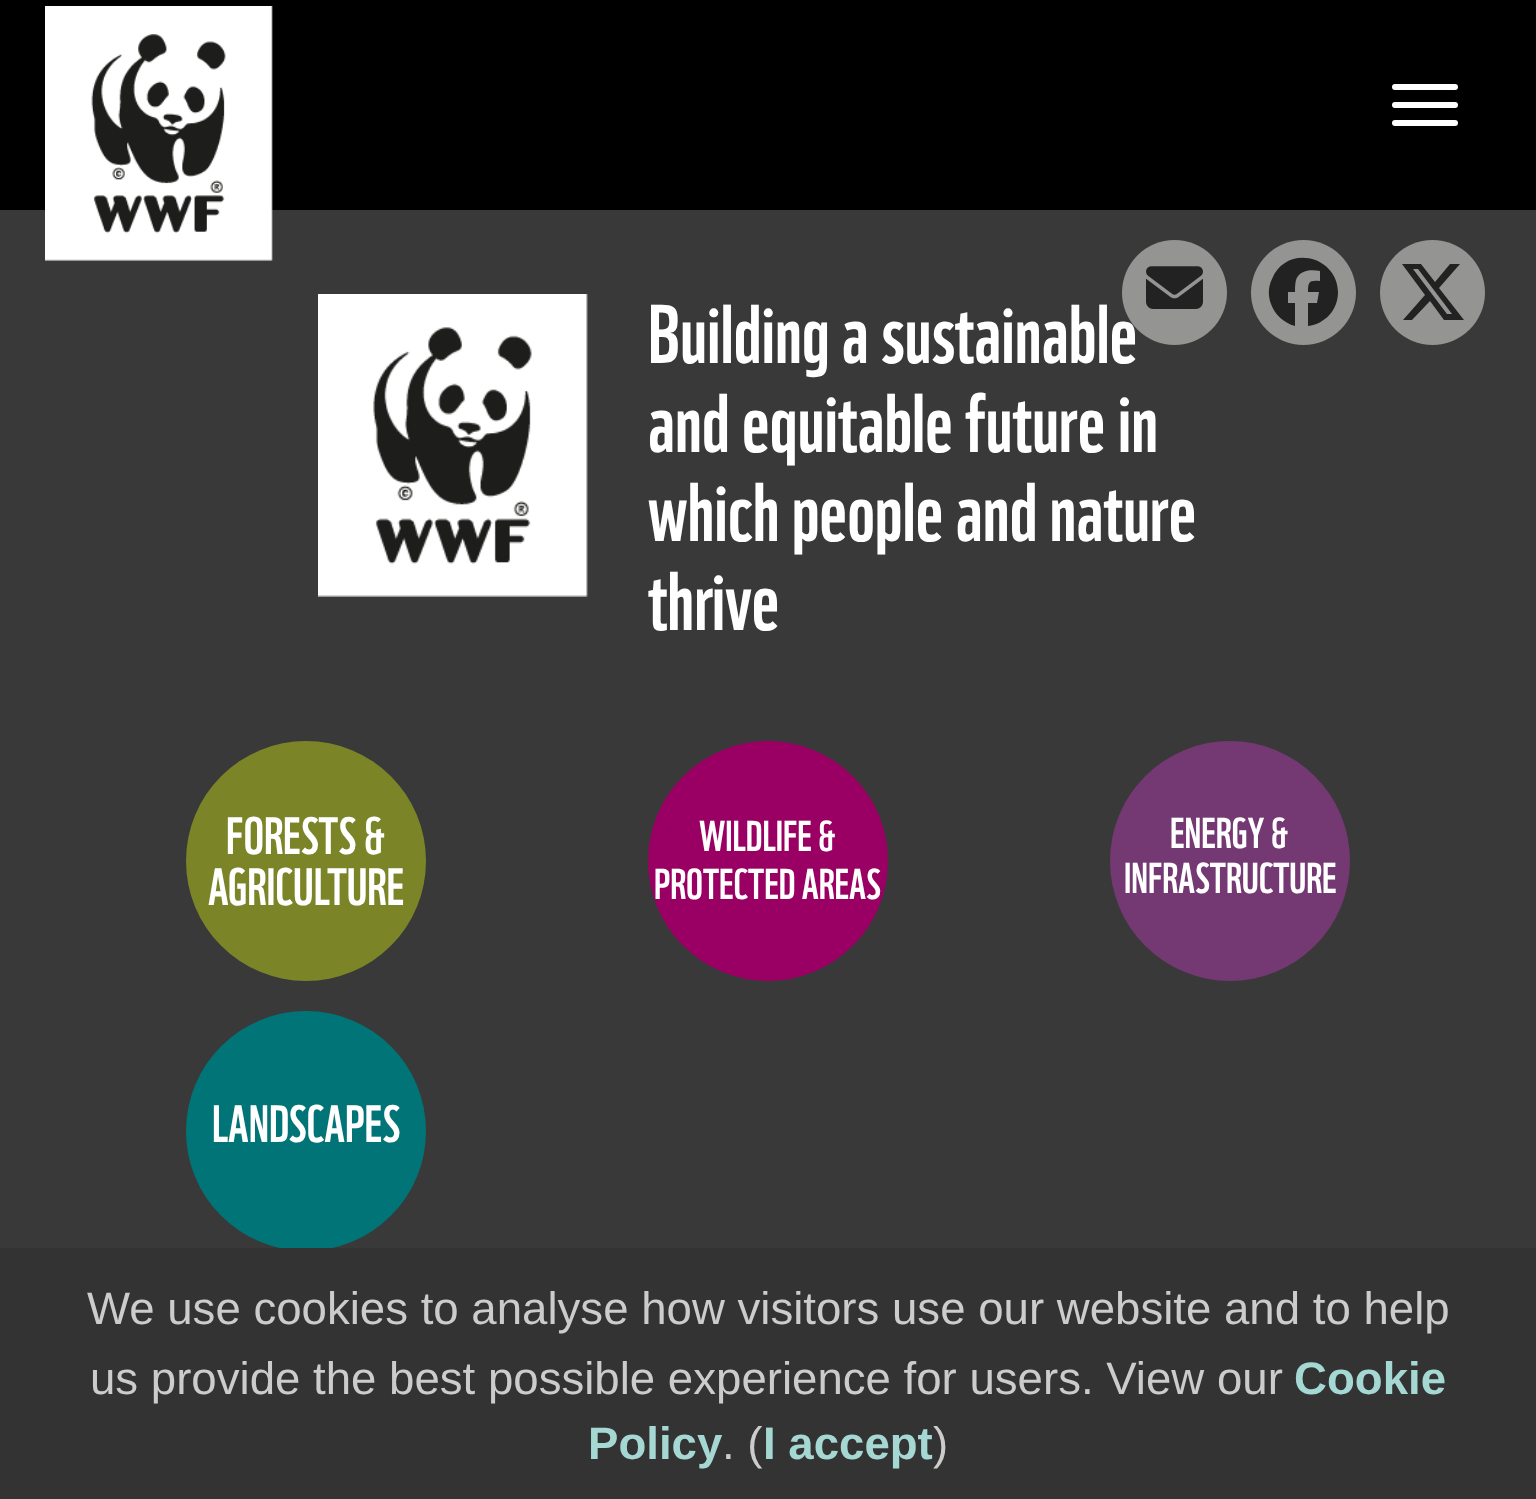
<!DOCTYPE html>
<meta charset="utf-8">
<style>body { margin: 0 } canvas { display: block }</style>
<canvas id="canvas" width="1536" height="1499"></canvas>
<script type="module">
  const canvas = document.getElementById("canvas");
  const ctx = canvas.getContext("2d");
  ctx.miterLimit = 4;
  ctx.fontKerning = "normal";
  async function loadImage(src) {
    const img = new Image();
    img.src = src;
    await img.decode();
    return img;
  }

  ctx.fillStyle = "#393939";
  ctx.fillRect(0, 0, 1536, 1499);
  ctx.fillStyle = "#000000";
  ctx.fillRect(0, 0, 1536, 210);
  ctx.drawImage(await loadImage("img1.png"), 45, 6, 228, 255);
  ctx.fillStyle = "#ffffff";
  ctx.beginPath();
  ctx.roundRect(1392, 84, 66, 6, 3);
  ctx.fill();
  ctx.beginPath();
  ctx.roundRect(1392, 102, 66, 6, 3);
  ctx.fill();
  ctx.beginPath();
  ctx.roundRect(1392, 120, 66, 6, 3);
  ctx.fill();
  ctx.font = "81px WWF";
  ctx.fillText("Building a sustainable", 648, 363);
  ctx.fillStyle = "#949492";
  ctx.beginPath();
  ctx.arc(1174.5, 292.5, 52.5, 0, Math.PI * 2);
  ctx.fill();
  ctx.drawImage(await loadImage("img2.png"), 1146, 266, 57, 43);
  ctx.beginPath();
  ctx.arc(1303.5, 292.5, 52.5, 0, Math.PI * 2);
  ctx.fill();
  ctx.fillStyle = "#222222";
  ctx.beginPath();
  ctx.moveTo(1338, 292);
  ctx.bezierCurveTo(1337, 255, 1286, 244, 1272, 279);
  ctx.bezierCurveTo(1268, 287, 1268, 296, 1271, 304);
  ctx.bezierCurveTo(1275, 315, 1284, 323, 1295, 326);
  ctx.lineTo(1295, 303);
  ctx.lineTo(1288, 303);
  ctx.lineTo(1288, 292);
  ctx.lineTo(1295, 292);
  ctx.bezierCurveTo(1295, 288, 1295, 284, 1296, 280);
  ctx.bezierCurveTo(1299, 270, 1311, 269, 1320, 271);
  ctx.lineTo(1320, 281);
  ctx.bezierCurveTo(1309, 280, 1308, 282, 1308, 292);
  ctx.lineTo(1319, 292);
  ctx.lineTo(1317, 303);
  ctx.lineTo(1308, 303);
  ctx.lineTo(1308, 326);
  ctx.bezierCurveTo(1325, 324, 1338, 310, 1338, 292);
  ctx.closePath();
  ctx.fill();
  ctx.fillStyle = "#949492";
  ctx.beginPath();
  ctx.arc(1432.5, 292.5, 52.5, 0, Math.PI * 2);
  ctx.fill();
  ctx.fillStyle = "#222222";
  ctx.beginPath();
  ctx.moveTo(1450, 264);
  ctx.lineTo(1460, 264);
  ctx.lineTo(1450, 264);
  ctx.lineTo(1460, 264);
  ctx.lineTo(1439, 288);
  ctx.lineTo(1464, 320);
  ctx.lineTo(1444, 320);
  ctx.lineTo(1430, 301);
  ctx.lineTo(1412, 320);
  ctx.lineTo(1403, 320);
  ctx.lineTo(1425, 295);
  ctx.lineTo(1402, 264);
  ctx.lineTo(1421, 264);
  ctx.lineTo(1435, 282);
  ctx.closePath();
  ctx.moveTo(1447, 314);
  ctx.lineTo(1452, 314);
  ctx.lineTo(1447, 314);
  ctx.lineTo(1452, 314);
  ctx.lineTo(1418, 269);
  ctx.lineTo(1413, 269);
  ctx.closePath();
  ctx.fill();
  ctx.drawImage(await loadImage("img3.png"), 318, 294, 270, 303);
  ctx.fillStyle = "#ffffff";
  ctx.fillText("and equitable future in", 648, 452);
  ctx.fillText("which people and nature", 648, 541);
  ctx.fillText("thrive", 648, 630);
  ctx.fillStyle = "#7b8427";
  ctx.beginPath();
  ctx.arc(306, 861, 120, 0, Math.PI * 2);
  ctx.fill();
  ctx.font = "51px WWF";
  ctx.fillStyle = "#ffffff";
  ctx.fillText("FORESTS &", 226, 854);
  ctx.fillText("AGRICULTURE", 208, 905);
  ctx.fillStyle = "#9a0064";
  ctx.beginPath();
  ctx.arc(768, 861, 120, 0, Math.PI * 2);
  ctx.fill();
  ctx.font = "42px WWF";
  ctx.fillStyle = "#ffffff";
  ctx.fillText("WILDLIFE &", 699, 851);
  ctx.fillText("PROTECTED AREAS", 654, 899);
  ctx.fillStyle = "#743873";
  ctx.beginPath();
  ctx.arc(1230, 861, 120, 0, Math.PI * 2);
  ctx.fill();
  ctx.fillStyle = "#ffffff";
  ctx.fillText("ENERGY &", 1170, 848);
  ctx.fillText("INFRASTRUCTURE", 1124, 893);
  ctx.fillStyle = "#007476";
  ctx.beginPath();
  ctx.arc(306, 1131, 120, 0, Math.PI * 2);
  ctx.fill();
  ctx.font = "51px WWF";
  ctx.fillStyle = "#ffffff";
  ctx.fillText("LANDSCAPES", 212, 1142);
  ctx.fillStyle = "#333333";
  ctx.fillRect(0, 1248, 1536, 251);
  ctx.font = "45.6px Liberation Sans";
  ctx.fillStyle = "#cccccc";
  ctx.fillText("We use cookies to analyse how visitors use our website and to help", 87, 1324);
  ctx.fillText("us provide the best possible experience for users. View our", 90, 1394);
  ctx.font = "bold 45.6px Liberation Sans";
  ctx.fillStyle = "#a5d8d3";
  ctx.fillText("Cookie", 1294, 1394);
  ctx.fillText("Policy", 588, 1459);
  ctx.font = "45.6px Liberation Sans";
  ctx.fillStyle = "#cccccc";
  ctx.fillText(". (", 722, 1459);
  ctx.font = "bold 45.6px Liberation Sans";
  ctx.fillStyle = "#a5d8d3";
  ctx.fillText("I accept", 763, 1459);
  ctx.font = "45.6px Liberation Sans";
  ctx.fillStyle = "#cccccc";
  ctx.fillText(")", 933, 1459);
</script>
